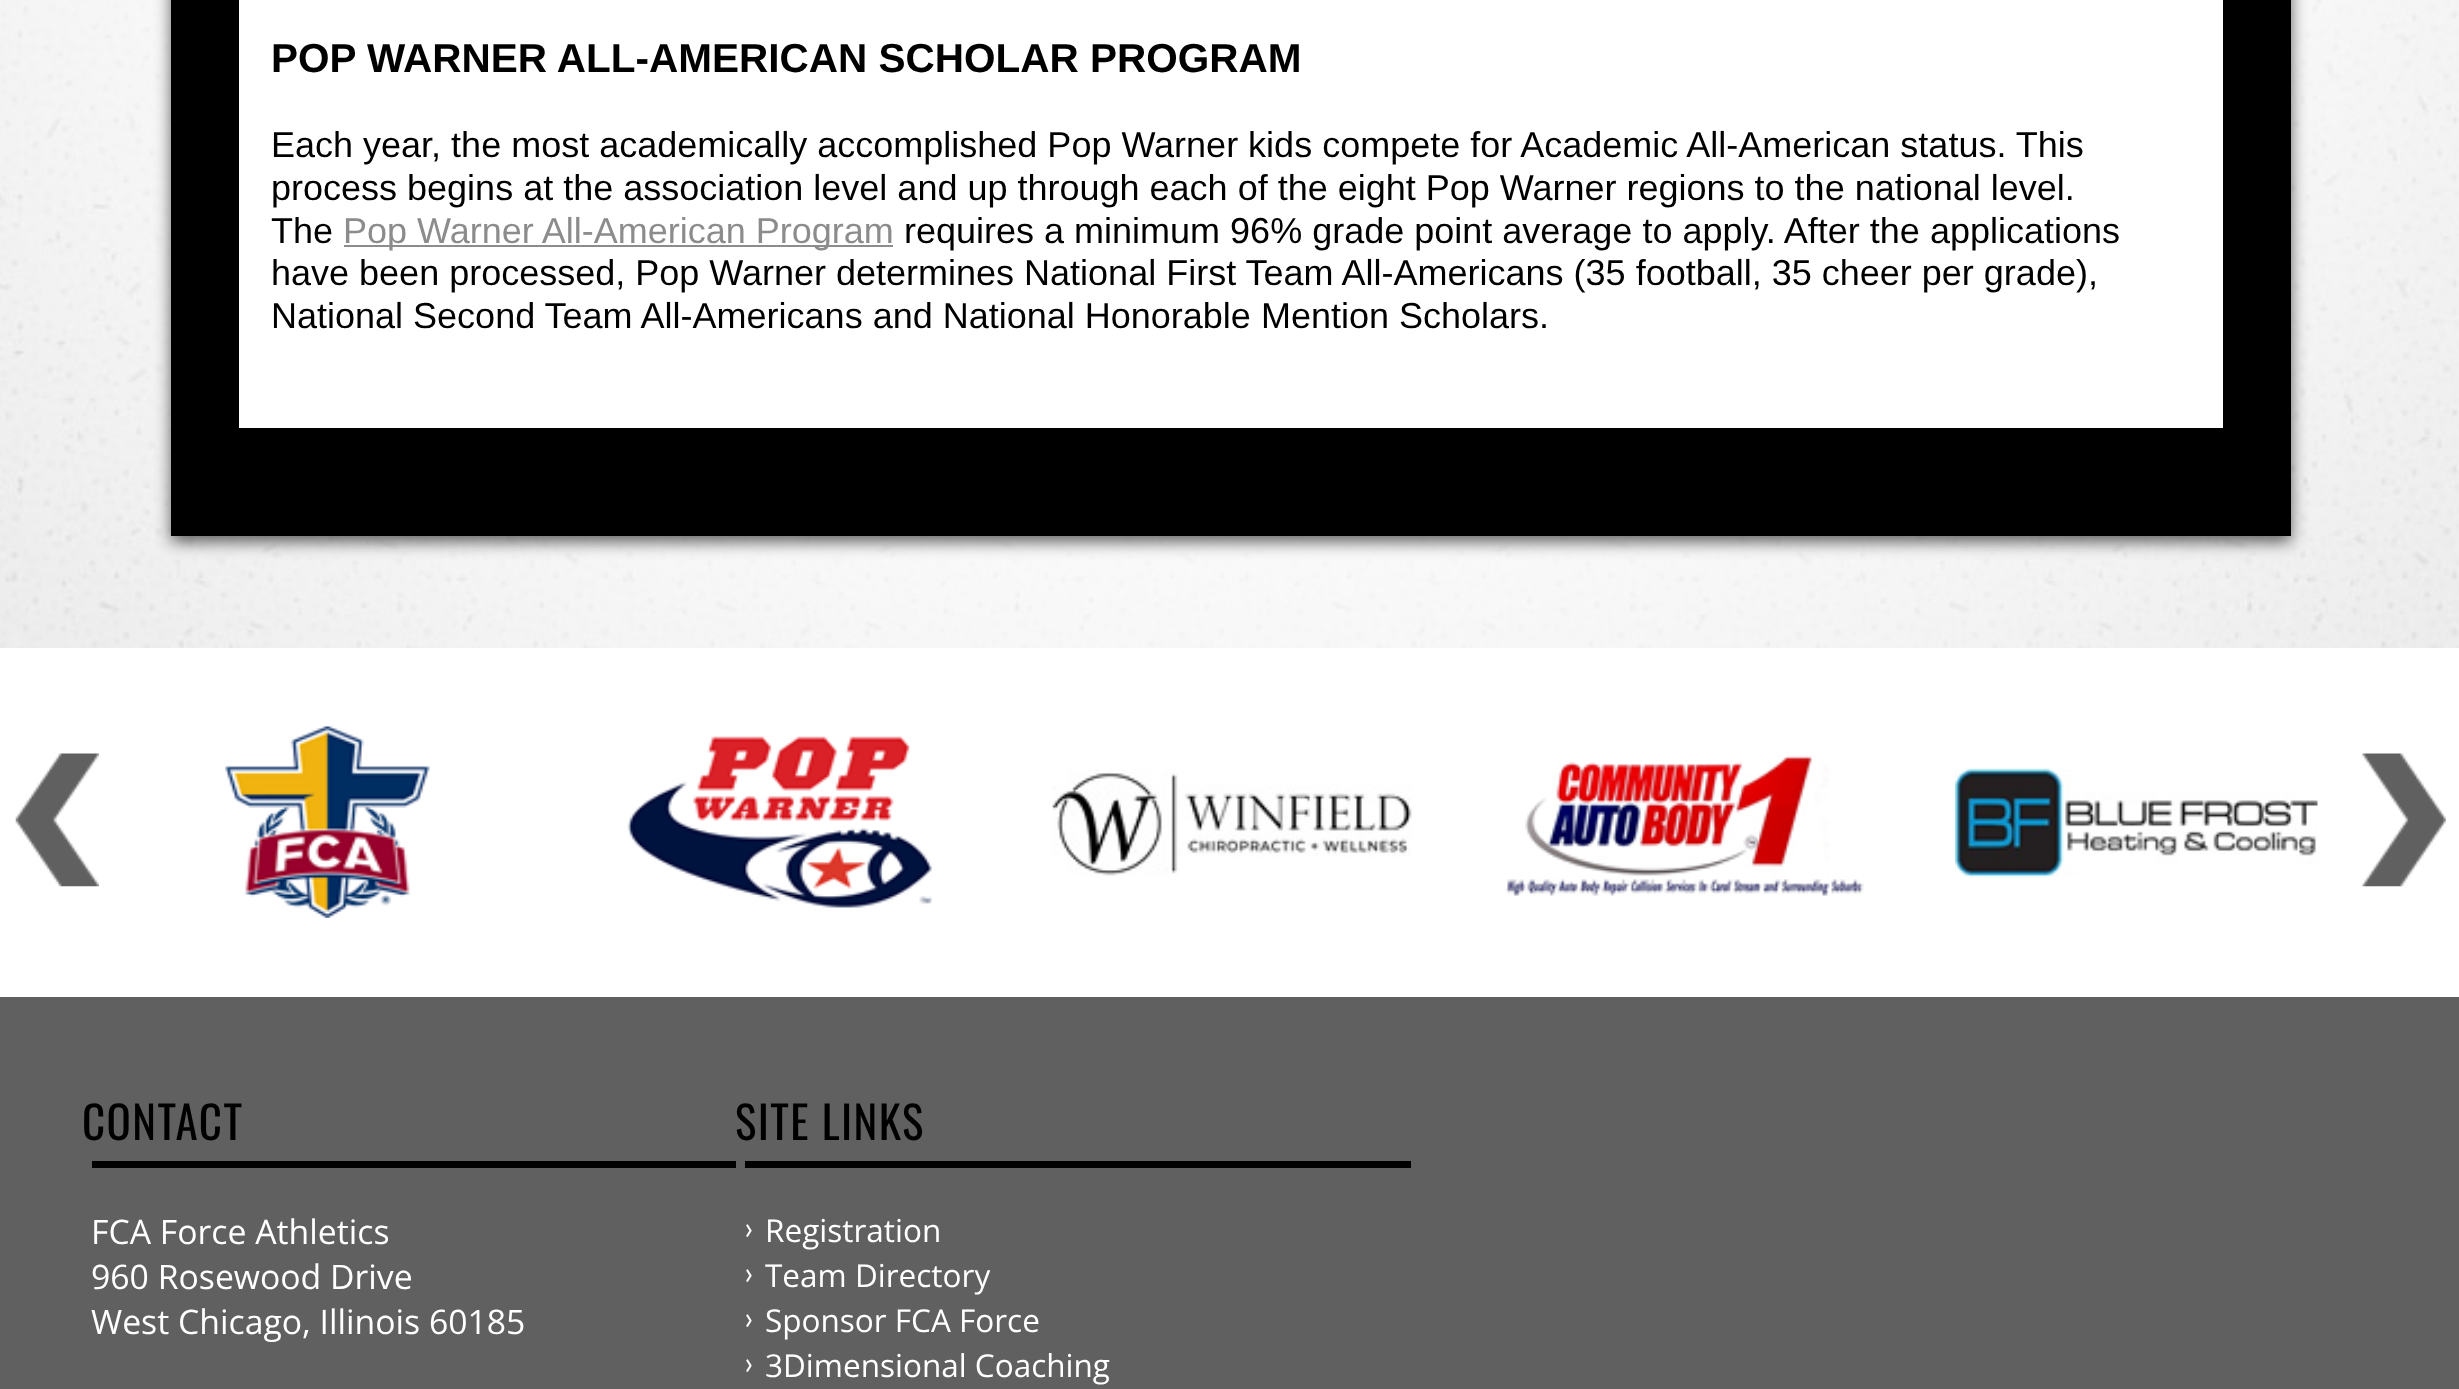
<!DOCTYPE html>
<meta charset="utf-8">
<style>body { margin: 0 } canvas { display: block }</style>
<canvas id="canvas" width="2459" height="1389"></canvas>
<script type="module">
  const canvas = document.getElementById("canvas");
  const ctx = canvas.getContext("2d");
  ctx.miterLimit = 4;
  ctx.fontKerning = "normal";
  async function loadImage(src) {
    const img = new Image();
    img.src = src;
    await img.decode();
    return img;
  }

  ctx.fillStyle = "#ffffff";
  ctx.fillRect(0, 0, 2459, 1389);
  ctx.drawImage(await loadImage("img1.png"), 0, 0, 2459, 648);
  ctx.drawImage(await loadImage("img2.png"), 0, 0, 2459, 648);
  ctx.fillStyle = "rgba(0, 0, 0, 0.61)";
  ctx.filter = "blur(8px)";
  ctx.beginPath();
  ctx.rect(171, -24, 2120, 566);
  ctx.fill();
  ctx.filter = "none";
  ctx.fillStyle = "#000000";
  ctx.fillRect(171, 0, 2120, 536);
  ctx.fillStyle = "#ffffff";
  ctx.fillRect(239, 0, 1984, 428);
  ctx.font = "bold 40.5px Liberation Sans";
  ctx.fillStyle = "#000000";
  ctx.fillText("POP WARNER ALL-AMERICAN SCHOLAR PROGRAM", 271, 72);
  ctx.font = "36px Liberation Sans";
  ctx.fillText("Each year, the most academically accomplished Pop Warner kids compete for Academic All-American status. This", 271, 157);
  ctx.fillText("process begins at the association level and up through each of the eight Pop Warner regions to the national level.", 271, 200);
  ctx.fillText("The", 271, 243);
  ctx.fillStyle = "#8c8c8c";
  ctx.fillRect(344, 245, 549, 2);
  ctx.fillText("Pop Warner All-American Program", 343, 243);
  ctx.fillStyle = "#000000";
  ctx.fillText("requires a minimum 96% grade point average to apply. After the applications", 904, 243);
  ctx.fillText("have been processed, Pop Warner determines National First Team All-Americans (35 football, 35 cheer per grade),", 271, 285);
  ctx.fillText("National Second Team All-Americans and National Honorable Mention Scholars.", 271, 328);
  ctx.drawImage(await loadImage("img3.png"), 15, 753, 84, 134);
  ctx.drawImage(await loadImage("img4.png"), 225, 726, 205, 192);
  ctx.drawImage(await loadImage("img5.png"), 627, 736, 305, 172);
  ctx.drawImage(await loadImage("img6.png"), 1052, 769, 360, 107);
  ctx.drawImage(await loadImage("img7.png"), 1505, 755, 360, 141);
  ctx.drawImage(await loadImage("img8.png"), 1955, 768, 363, 110);
  ctx.drawImage(await loadImage("img9.png"), 2362, 753, 84, 134);
  ctx.fillStyle = "#606060";
  ctx.fillRect(0, 997, 2459, 392);
  ctx.letterSpacing = "1.4px";
  ctx.font = "45px Oswald";
  ctx.fillStyle = "#000000";
  ctx.fillText("CONTACT", 82, 1140);
  ctx.fillRect(92, 1161, 644, 7);
  ctx.letterSpacing = "0px";
  ctx.font = "33.75px Open Sans";
  ctx.fillStyle = "#ffffff";
  ctx.fillText("FCA Force Athletics", 91, 1244);
  ctx.fillText("960 Rosewood Drive", 91, 1289);
  ctx.fillText("West Chicago, Illinois 60185", 91, 1334);
  ctx.letterSpacing = "1.4px";
  ctx.font = "45px Oswald";
  ctx.fillStyle = "#000000";
  ctx.fillText("SITE LINKS", 735, 1140);
  ctx.fillRect(745, 1161, 666, 7);
  ctx.letterSpacing = "0px";
  ctx.font = "31.5px Lato";
  ctx.fillStyle = "#ffffff";
  ctx.fillText("›", 744, 1239);
  ctx.font = "31.5px Open Sans";
  ctx.fillText("Registration", 765, 1242);
  ctx.font = "31.5px Lato";
  ctx.fillText("›", 744, 1284);
  ctx.font = "31.5px Open Sans";
  ctx.fillText("Team Directory", 765, 1287);
  ctx.font = "31.5px Lato";
  ctx.fillText("›", 744, 1329);
  ctx.font = "31.5px Open Sans";
  ctx.fillText("Sponsor FCA Force", 765, 1332);
  ctx.font = "31.5px Lato";
  ctx.fillText("›", 744, 1374);
  ctx.font = "31.5px Open Sans";
  ctx.fillText("3Dimensional Coaching", 765, 1377);
</script>
